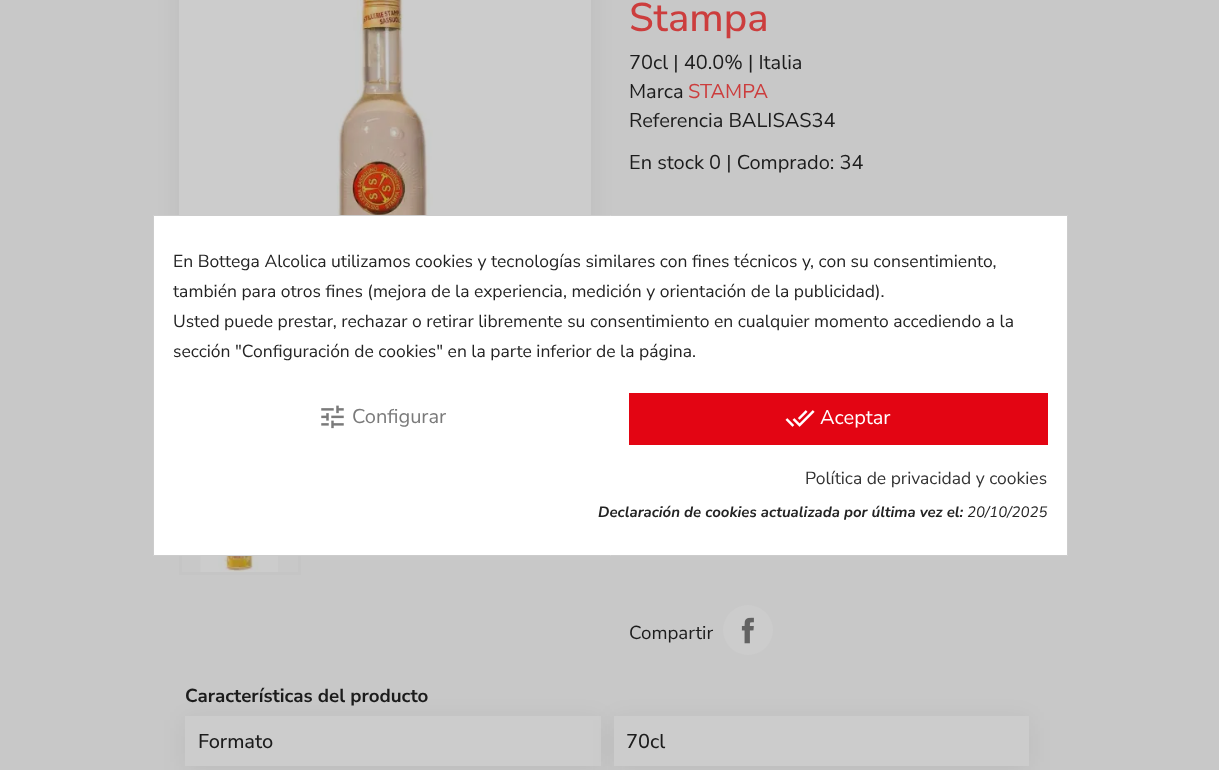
<!DOCTYPE html>
<meta charset="utf-8">
<style>body { margin: 0 } canvas { display: block }</style>
<canvas id="canvas" width="1219" height="770"></canvas>
<script type="module">
  const canvas = document.getElementById("canvas");
  const ctx = canvas.getContext("2d");
  ctx.miterLimit = 4;
  ctx.fontKerning = "normal";
  async function loadImage(src) {
    const img = new Image();
    img.src = src;
    await img.decode();
    return img;
  }

  ctx.fillStyle = "#c8c8c8";
  ctx.fillRect(0, 0, 1219, 770);
  ctx.fillStyle = "rgba(0, 0, 0, 0.06)";
  ctx.filter = "blur(12.5px)";
  ctx.beginPath();
  ctx.rect(179, -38, 412, 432);
  ctx.fill();
  ctx.filter = "none";
  ctx.fillStyle = "#cccccc";
  ctx.fillRect(179, 0, 412, 215);
  ctx.drawImage(await loadImage("img1.png"), 331, 0, 102, 215);
  ctx.strokeStyle = "#c5c5c5";
  ctx.lineWidth = 3;
  ctx.strokeRect(180.5, 454.5, 119, 119);
  ctx.drawImage(await loadImage("img2.png"), 200, 556, 78, 16);
  ctx.font = "500 40px Nunito Sans";
  ctx.fillStyle = "#cc3d3d";
  ctx.fillText("Stampa", 629, 31);
  ctx.font = "20px Nunito Sans";
  ctx.fillStyle = "#1c1c1c";
  ctx.fillText("70cl | 40.0% | Italia", 629, 69);
  ctx.fillText("Marca", 629, 98);
  ctx.fillStyle = "#cc3d3d";
  ctx.fillText("STAMPA", 688, 98);
  ctx.fillStyle = "#1c1c1c";
  ctx.fillText("Referencia BALISAS34", 629, 127);
  ctx.fillText("En stock 0 | Comprado: 34", 629, 169);
  ctx.font = "18.75px Nunito Sans";
  ctx.fillText("Compartir", 629, 639);
  ctx.fillStyle = "#cccccc";
  ctx.beginPath();
  ctx.arc(748, 630, 25, 0, Math.PI * 2);
  ctx.fill();
  ctx.drawImage(await loadImage("img3.png"), 741, 617, 13, 27);
  ctx.font = "bold 18.75px Nunito Sans";
  ctx.fillStyle = "#1c1c1c";
  ctx.fillText("Características del producto", 185, 702);
  ctx.fillStyle = "rgba(0, 0, 0, 0.06)";
  ctx.filter = "blur(12.5px)";
  ctx.beginPath();
  ctx.rect(185, 720, 416, 50);
  ctx.fill();
  ctx.filter = "none";
  ctx.fillStyle = "#cccccc";
  ctx.fillRect(185, 716, 416, 50);
  ctx.font = "500 20px Nunito Sans";
  ctx.fillStyle = "#1c1c1c";
  ctx.fillText("Formato", 198, 748);
  ctx.fillStyle = "rgba(0, 0, 0, 0.06)";
  ctx.filter = "blur(12.5px)";
  ctx.beginPath();
  ctx.rect(614, 720, 415, 50);
  ctx.fill();
  ctx.filter = "none";
  ctx.fillStyle = "#cccccc";
  ctx.fillRect(614, 716, 415, 50);
  ctx.fillStyle = "#1c1c1c";
  ctx.fillText("70cl", 626, 748);
  ctx.fillStyle = "#ffffff";
  ctx.beginPath();
  ctx.rect(153.5, 215.5, 914, 340);
  ctx.fill();
  ctx.strokeStyle = "#cccccc";
  ctx.lineWidth = 1;
  ctx.stroke();
  ctx.font = "17.5px Nunito Sans";
  ctx.fillStyle = "#232323";
  ctx.fillText("En Bottega Alcolica utilizamos cookies y tecnologías similares con fines técnicos y, con su consentimiento,", 173, 267);
  ctx.fillText("también para otros fines (mejora de la experiencia, medición y orientación de la publicidad).", 173, 297);
  ctx.fillText("Usted puede prestar, rechazar o retirar libremente su consentimiento en cualquier momento accediendo a la", 173, 327);
  ctx.fillText("sección \"Configuración de cookies\" en la parte inferior de la página.", 173, 357);
  ctx.drawImage(await loadImage("img4.png"), 321, 405, 23, 24);
  ctx.font = "20px Nunito Sans";
  ctx.fillStyle = "#7a7a7a";
  ctx.fillText("Configurar", 352, 423);
  ctx.fillStyle = "#e30513";
  ctx.fillRect(629, 393, 419, 52);
  ctx.drawImage(await loadImage("img5.png"), 785, 410, 30, 17);
  ctx.fillStyle = "#ffffff";
  ctx.fillText("Aceptar", 820, 424);
  ctx.font = "17.5px Nunito Sans";
  ctx.fillStyle = "#333333";
  ctx.fillText("Política de privacidad y cookies", 805, 484);
  ctx.font = "italic bold 15px Nunito Sans";
  ctx.fillStyle = "#232323";
  ctx.fillText("Declaración de cookies actualizada por última vez el:", 598, 517);
  ctx.font = "italic 15px Nunito Sans";
  ctx.fillText("20/10/2025", 967, 517);
</script>
